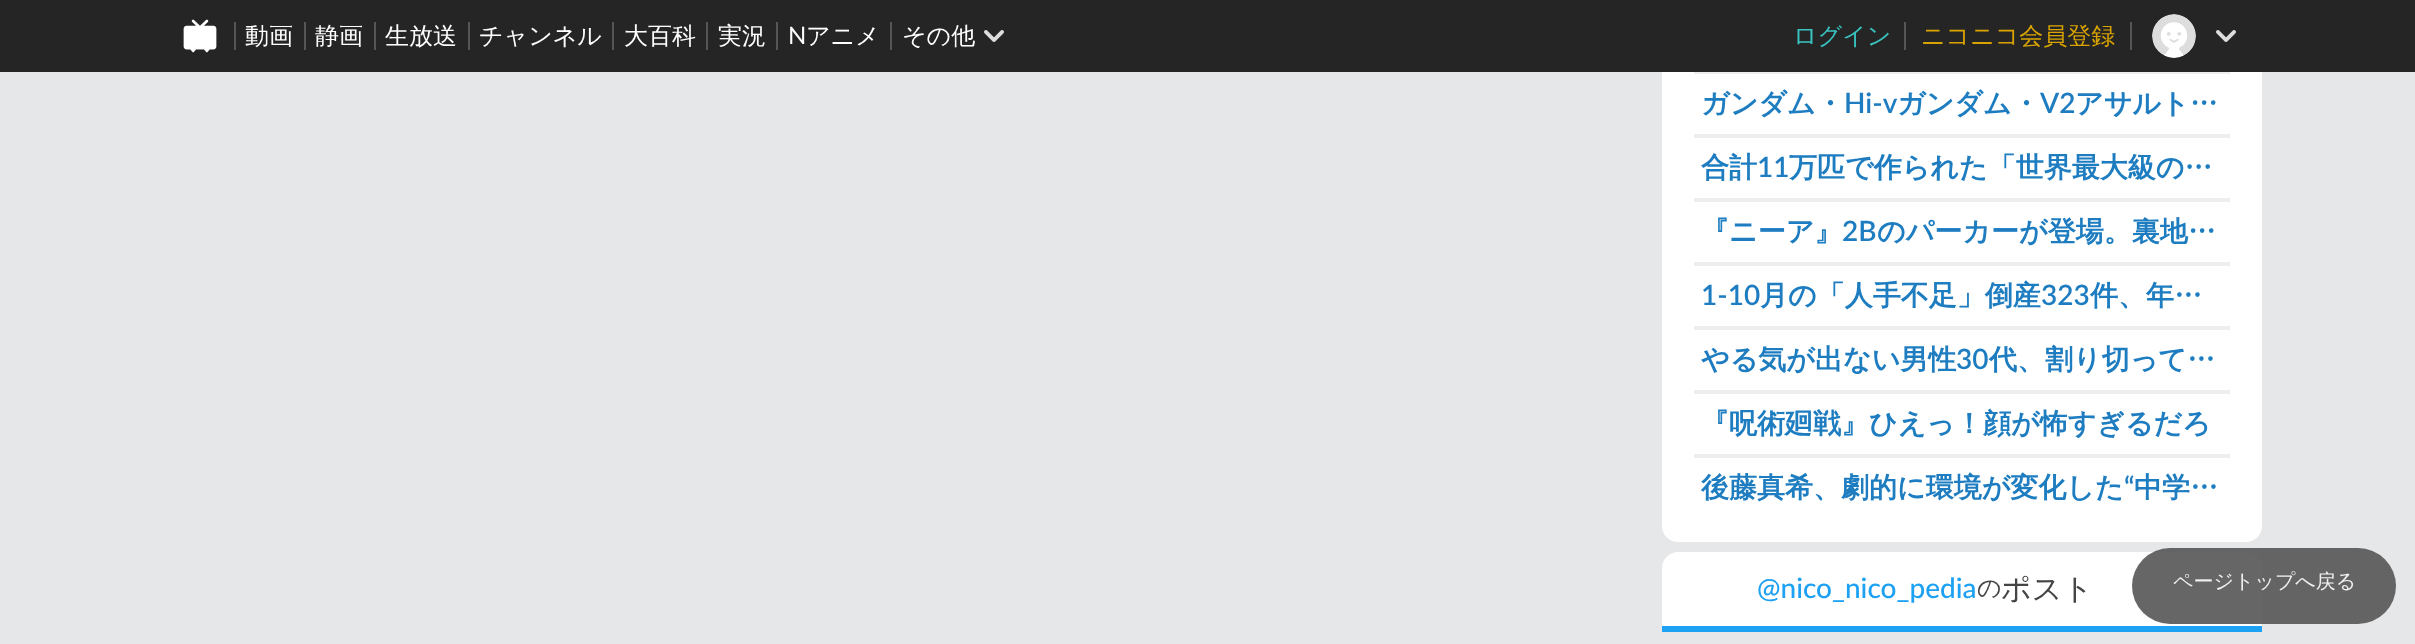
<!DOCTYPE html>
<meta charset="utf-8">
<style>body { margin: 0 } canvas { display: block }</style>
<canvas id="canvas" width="2415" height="644"></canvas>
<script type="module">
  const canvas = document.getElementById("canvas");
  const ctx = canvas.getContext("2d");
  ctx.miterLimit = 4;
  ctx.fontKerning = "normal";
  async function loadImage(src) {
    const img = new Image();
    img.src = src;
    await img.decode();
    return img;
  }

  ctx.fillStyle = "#e6e7e8";
  ctx.fillRect(0, 0, 2415, 644);
  ctx.fillStyle = "#ffffff";
  ctx.beginPath();
  ctx.roundRect(1662, -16, 600, 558, 16);
  ctx.fill();
  ctx.fillStyle = "#252525";
  ctx.fillRect(0, 0, 2415, 72);
  ctx.drawImage(await loadImage("img1.png"), 183, 19, 34, 34);
  ctx.fillStyle = "#555555";
  ctx.fillRect(234, 22, 2, 28);
  ctx.font = "500 24px WenQuanYi Zen Hei";
  ctx.fillStyle = "#ffffff";
  ctx.fillText("動画", 245, 44);
  ctx.fillStyle = "#555555";
  ctx.fillRect(304, 22, 2, 28);
  ctx.fillStyle = "#ffffff";
  ctx.fillText("静画", 315, 44);
  ctx.fillStyle = "#555555";
  ctx.fillRect(374, 22, 2, 28);
  ctx.fillStyle = "#ffffff";
  ctx.fillText("生放送", 385, 44);
  ctx.fillStyle = "#555555";
  ctx.fillRect(468, 22, 2, 28);
  ctx.fillStyle = "#ffffff";
  ctx.fillText("チャンネル", 479, 44);
  ctx.fillStyle = "#555555";
  ctx.fillRect(612, 22, 2, 28);
  ctx.fillStyle = "#ffffff";
  ctx.fillText("大百科", 624, 44);
  ctx.fillStyle = "#555555";
  ctx.fillRect(706, 22, 2, 28);
  ctx.fillStyle = "#ffffff";
  ctx.fillText("実況", 718, 44);
  ctx.fillStyle = "#555555";
  ctx.fillRect(776, 22, 2, 28);
  ctx.font = "24px Lato";
  ctx.fillStyle = "#ffffff";
  ctx.fillText("N", 788, 44);
  ctx.font = "500 24px WenQuanYi Zen Hei";
  ctx.fillText("アニメ", 806, 44);
  ctx.fillStyle = "#555555";
  ctx.fillRect(890, 22, 2, 28);
  ctx.fillStyle = "#ffffff";
  ctx.fillText("その他", 902, 44);
  ctx.drawImage(await loadImage("img2.png"), 984, 30, 20, 12);
  ctx.fillStyle = "#39c4c1";
  ctx.fillText("ログイン", 1793, 44);
  ctx.fillStyle = "#555555";
  ctx.fillRect(1904, 22, 2, 28);
  ctx.fillStyle = "#d9a300";
  ctx.fillText("ニコニコ会員登録", 1921, 44);
  ctx.fillStyle = "#555555";
  ctx.fillRect(2130, 22, 2, 28);
  ctx.drawImage(await loadImage("img3.png"), 2152, 14, 44, 44);
  ctx.drawImage(await loadImage("img2.png"), 2216, 30, 20, 12);
  ctx.fillStyle = "#eeeeee";
  ctx.fillRect(1694, 72, 536, 2);
  ctx.fillRect(1694, 134, 536, 4);
  ctx.font = "bold 28px WenQuanYi Zen Hei";
  ctx.fillStyle = "#1e7dc0";
  ctx.fillText("ガンダム・", 1701, 113);
  ctx.font = "600 28px Lato";
  ctx.fillText("Hi-v", 1844, 113);
  ctx.font = "bold 28px WenQuanYi Zen Hei";
  ctx.fillText("ガンダム・", 1897, 113);
  ctx.font = "600 28px Lato";
  ctx.fillText("V2", 2040, 113);
  ctx.font = "bold 28px WenQuanYi Zen Hei";
  ctx.fillText("アサルト…", 2075, 113);
  ctx.fillStyle = "#eeeeee";
  ctx.fillRect(1694, 198, 536, 4);
  ctx.fillStyle = "#1e7dc0";
  ctx.fillText("合計", 1701, 177);
  ctx.font = "600 28px Lato";
  ctx.fillText("11", 1757, 177);
  ctx.font = "bold 28px WenQuanYi Zen Hei";
  ctx.fillText("万匹で作られた「世界最大級の…", 1789, 177);
  ctx.fillStyle = "#eeeeee";
  ctx.fillRect(1694, 262, 536, 4);
  ctx.fillStyle = "#1e7dc0";
  ctx.fillText("『ニーア』", 1701, 241);
  ctx.font = "600 28px Lato";
  ctx.fillText("2B", 1842, 241);
  ctx.font = "bold 28px WenQuanYi Zen Hei";
  ctx.fillText("のパーカーが登場。裏地…", 1877, 241);
  ctx.fillStyle = "#eeeeee";
  ctx.fillRect(1694, 326, 536, 4);
  ctx.font = "600 28px Lato";
  ctx.fillStyle = "#1e7dc0";
  ctx.fillText("1-10", 1701, 305);
  ctx.font = "bold 28px WenQuanYi Zen Hei";
  ctx.fillText("月の「人手不足」倒産", 1760, 305);
  ctx.font = "600 28px Lato";
  ctx.fillText("323", 2041, 305);
  ctx.font = "bold 28px WenQuanYi Zen Hei";
  ctx.fillText("件、年…", 2090, 305);
  ctx.fillStyle = "#eeeeee";
  ctx.fillRect(1694, 390, 536, 4);
  ctx.fillStyle = "#1e7dc0";
  ctx.fillText("やる気が出ない男性", 1701, 369);
  ctx.font = "600 28px Lato";
  ctx.fillText("30", 1956, 369);
  ctx.font = "bold 28px WenQuanYi Zen Hei";
  ctx.fillText("代、割り切って…", 1989, 369);
  ctx.fillStyle = "#eeeeee";
  ctx.fillRect(1694, 454, 536, 4);
  ctx.fillStyle = "#1e7dc0";
  ctx.fillText("『呪術廻戦』ひえっ！顔が怖すぎるだろ", 1701, 433);
  ctx.fillText("後藤真希、劇的に環境が変化した", 1701, 497);
  ctx.font = "600 28px Lato";
  ctx.fillText("“", 2124, 497);
  ctx.font = "bold 28px WenQuanYi Zen Hei";
  ctx.fillText("中学…", 2134, 497);
  ctx.fillStyle = "#ffffff";
  ctx.beginPath();
  ctx.roundRect(1662, 552, 600, 80, [16, 16, 0, 0]);
  ctx.fill();
  ctx.fillStyle = "#1da1f2";
  ctx.fillRect(1662, 626, 600, 6);
  ctx.font = "500 28px Lato";
  ctx.fillText("@nico_nico_pedia", 1757, 598);
  ctx.font = "500 24px WenQuanYi Zen Hei";
  ctx.fillStyle = "#444444";
  ctx.fillText("の", 1977, 596);
  ctx.font = "500 30px WenQuanYi Zen Hei";
  ctx.fillText("ポスト", 2001, 599);
  ctx.fillStyle = "rgba(85, 85, 85, 0.9)";
  ctx.beginPath();
  ctx.roundRect(2132, 548, 264, 76, 38);
  ctx.fill();
  ctx.font = "500 20px WenQuanYi Zen Hei";
  ctx.fillStyle = "#f0f0f0";
  ctx.fillText("ページトップへ戻る", 2173, 588);
</script>
